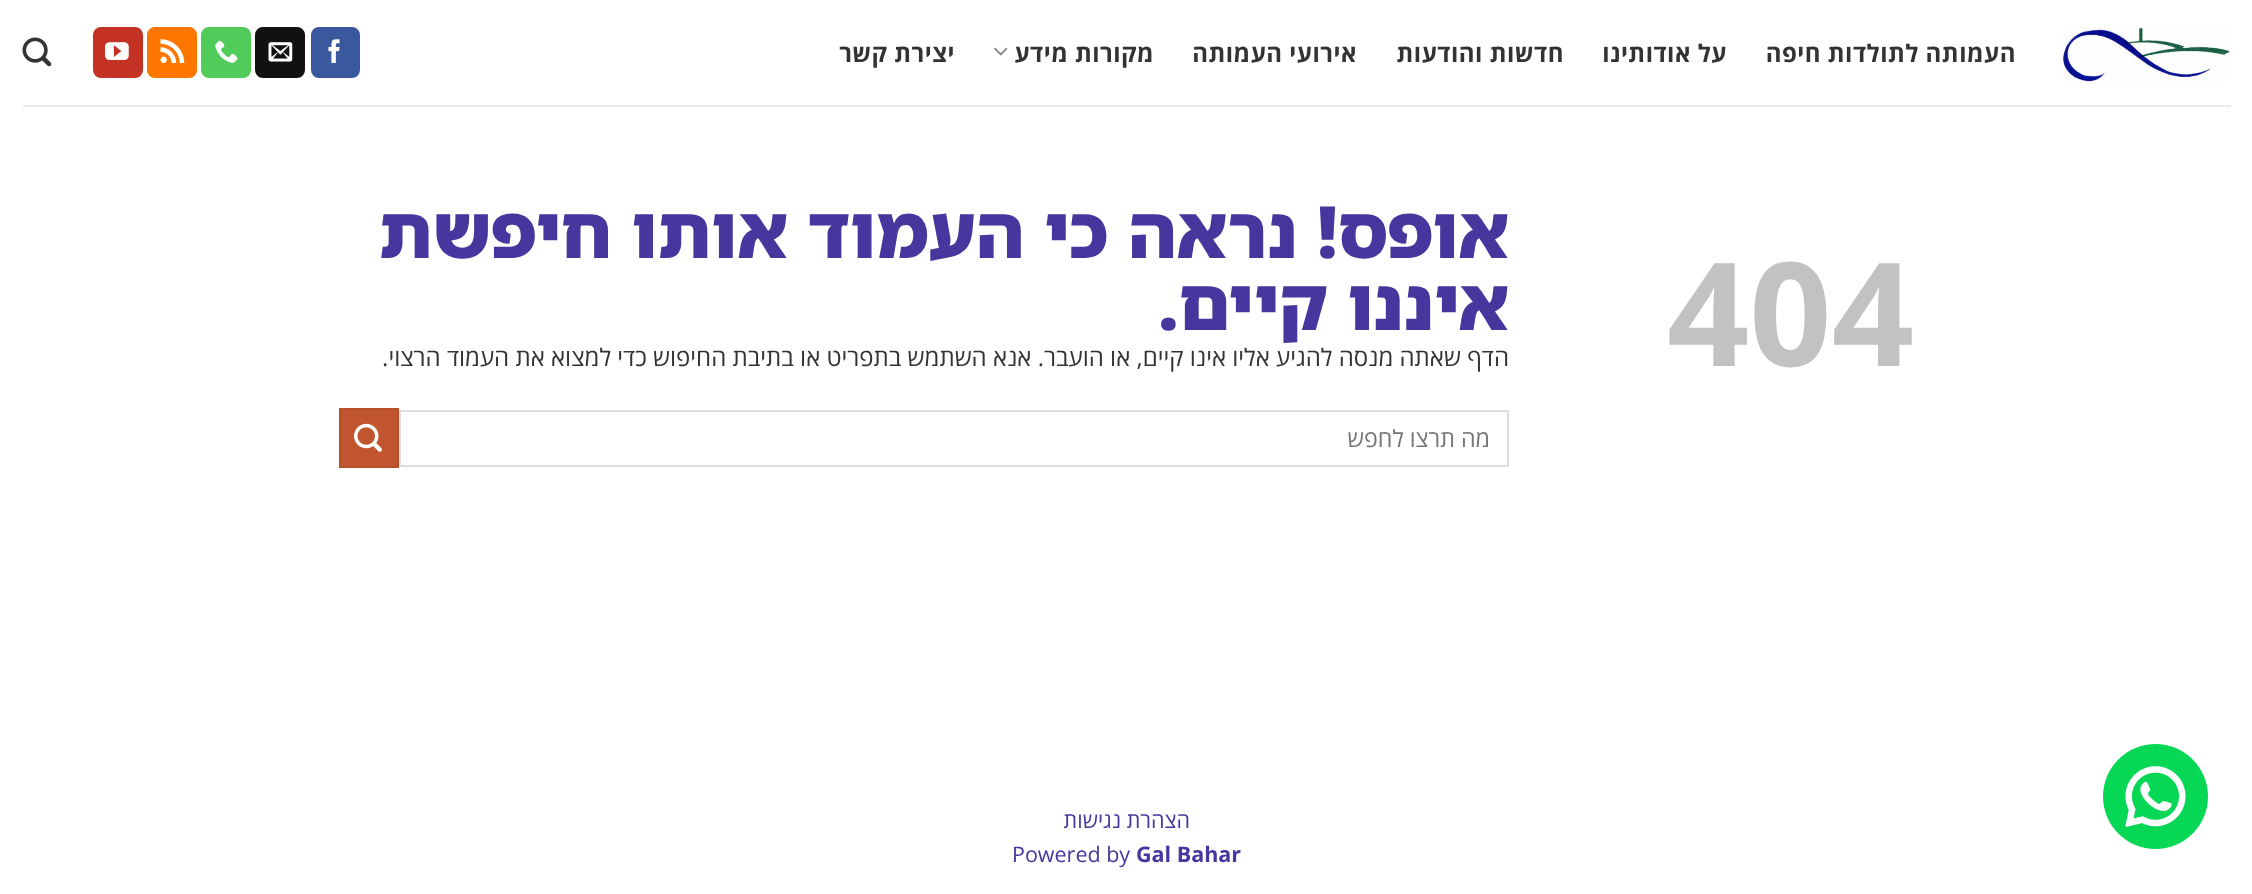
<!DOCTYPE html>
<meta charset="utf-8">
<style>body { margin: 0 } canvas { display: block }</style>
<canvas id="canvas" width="2252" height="894"></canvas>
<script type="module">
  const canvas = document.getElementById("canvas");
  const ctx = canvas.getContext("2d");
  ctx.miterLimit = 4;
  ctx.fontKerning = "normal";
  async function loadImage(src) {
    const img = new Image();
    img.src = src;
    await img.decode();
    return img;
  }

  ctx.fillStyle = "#ffffff";
  ctx.fillRect(0, 0, 2252, 894);
  ctx.drawImage(await loadImage("img1.png"), 2103, 744, 105, 105);
  ctx.drawImage(await loadImage("img2.png"), 2062, 27, 168, 55);
  ctx.letterSpacing = "0.5px";
  ctx.direction = "rtl";
  ctx.font = "bold 24px Open Sans";
  ctx.fillStyle = "#333333";
  ctx.fillText("העמותה לתולדות חיפה", 2016, 62);
  ctx.fillText("על אודותינו", 1727, 62);
  ctx.fillText("חדשות והודעות", 1564, 62);
  ctx.fillText("אירועי העמותה", 1357, 62);
  ctx.fillText("מקורות מידע", 1154, 62);
  ctx.drawImage(await loadImage("img3.png"), 994, 47, 14, 9);
  ctx.fillText("יצירת קשר", 955, 62);
  ctx.fillStyle = "#3a589d";
  ctx.beginPath();
  ctx.roundRect(312, 28, 47, 49, 7);
  ctx.fill();
  ctx.strokeStyle = "#3a589d";
  ctx.lineWidth = 2;
  ctx.stroke();
  ctx.drawImage(await loadImage("img4.png"), 328, 39, 12, 24);
  ctx.fillStyle = "#111111";
  ctx.beginPath();
  ctx.roundRect(256, 28, 48, 49, 7);
  ctx.fill();
  ctx.strokeStyle = "#111111";
  ctx.stroke();
  ctx.drawImage(await loadImage("img5.png"), 268, 42, 25, 20);
  ctx.fillStyle = "#51cb5a";
  ctx.beginPath();
  ctx.roundRect(202, 28, 48, 49, 7);
  ctx.fill();
  ctx.strokeStyle = "#51cb5a";
  ctx.stroke();
  ctx.drawImage(await loadImage("img6.png"), 215, 40, 23, 23);
  ctx.fillStyle = "#fc7600";
  ctx.beginPath();
  ctx.roundRect(148, 28, 48, 49, 7);
  ctx.fill();
  ctx.strokeStyle = "#fc7600";
  ctx.stroke();
  ctx.drawImage(await loadImage("img7.png"), 160, 39, 25, 24);
  ctx.fillStyle = "#c33223";
  ctx.beginPath();
  ctx.roundRect(94, 28, 48, 49, 7);
  ctx.fill();
  ctx.strokeStyle = "#c33223";
  ctx.stroke();
  ctx.drawImage(await loadImage("img8.png"), 105, 42, 24, 18);
  ctx.drawImage(await loadImage("img9.png"), 22, 37, 30, 30);
  ctx.fillStyle = "#ebebeb";
  ctx.fillRect(23, 105, 2208, 2);
  ctx.letterSpacing = "0px";
  ctx.direction = "ltr";
  ctx.font = "bold 144px Open Sans";
  ctx.fillStyle = "#c2c2c2";
  ctx.fillText("404", 1667, 366);
  ctx.direction = "rtl";
  ctx.font = "900 72px Noto Sans Hebrew";
  ctx.fillStyle = "#45379e";
  ctx.fillText("אופס! נראה כי העמוד אותו חיפשת", 1509, 258);
  ctx.fillText("איננו קיים.", 1509, 330);
  ctx.font = "24px Open Sans";
  ctx.fillStyle = "#333333";
  ctx.fillText("הדף שאתה מנסה להגיע אליו אינו קיים, או הועבר. אנא השתמש בתפריט או בתיבת החיפוש כדי למצוא את העמוד הרצוי.", 1509, 366);
  ctx.strokeStyle = "#dddddd";
  ctx.strokeRect(400, 411, 1108, 55);
  ctx.font = "23.25px Open Sans";
  ctx.fillStyle = "#757575";
  ctx.fillText("מה תרצו לחפש", 1490, 447);
  ctx.fillStyle = "#c05530";
  ctx.beginPath();
  ctx.rect(340, 409, 58, 58);
  ctx.fill();
  ctx.strokeStyle = "#b6512e";
  ctx.stroke();
  ctx.drawImage(await loadImage("img10.png"), 354, 423, 28, 29);
  ctx.font = "21.5px Open Sans";
  ctx.fillStyle = "#45379e";
  ctx.fillText("הצהרת נגישות", 1190, 828);
  ctx.direction = "ltr";
  ctx.font = "bold 21.5px Open Sans";
  ctx.fillText("Gal Bahar", 1136, 862);
  ctx.font = "21.5px Open Sans";
  ctx.fillText("Powered by", 1012, 862);
</script>
